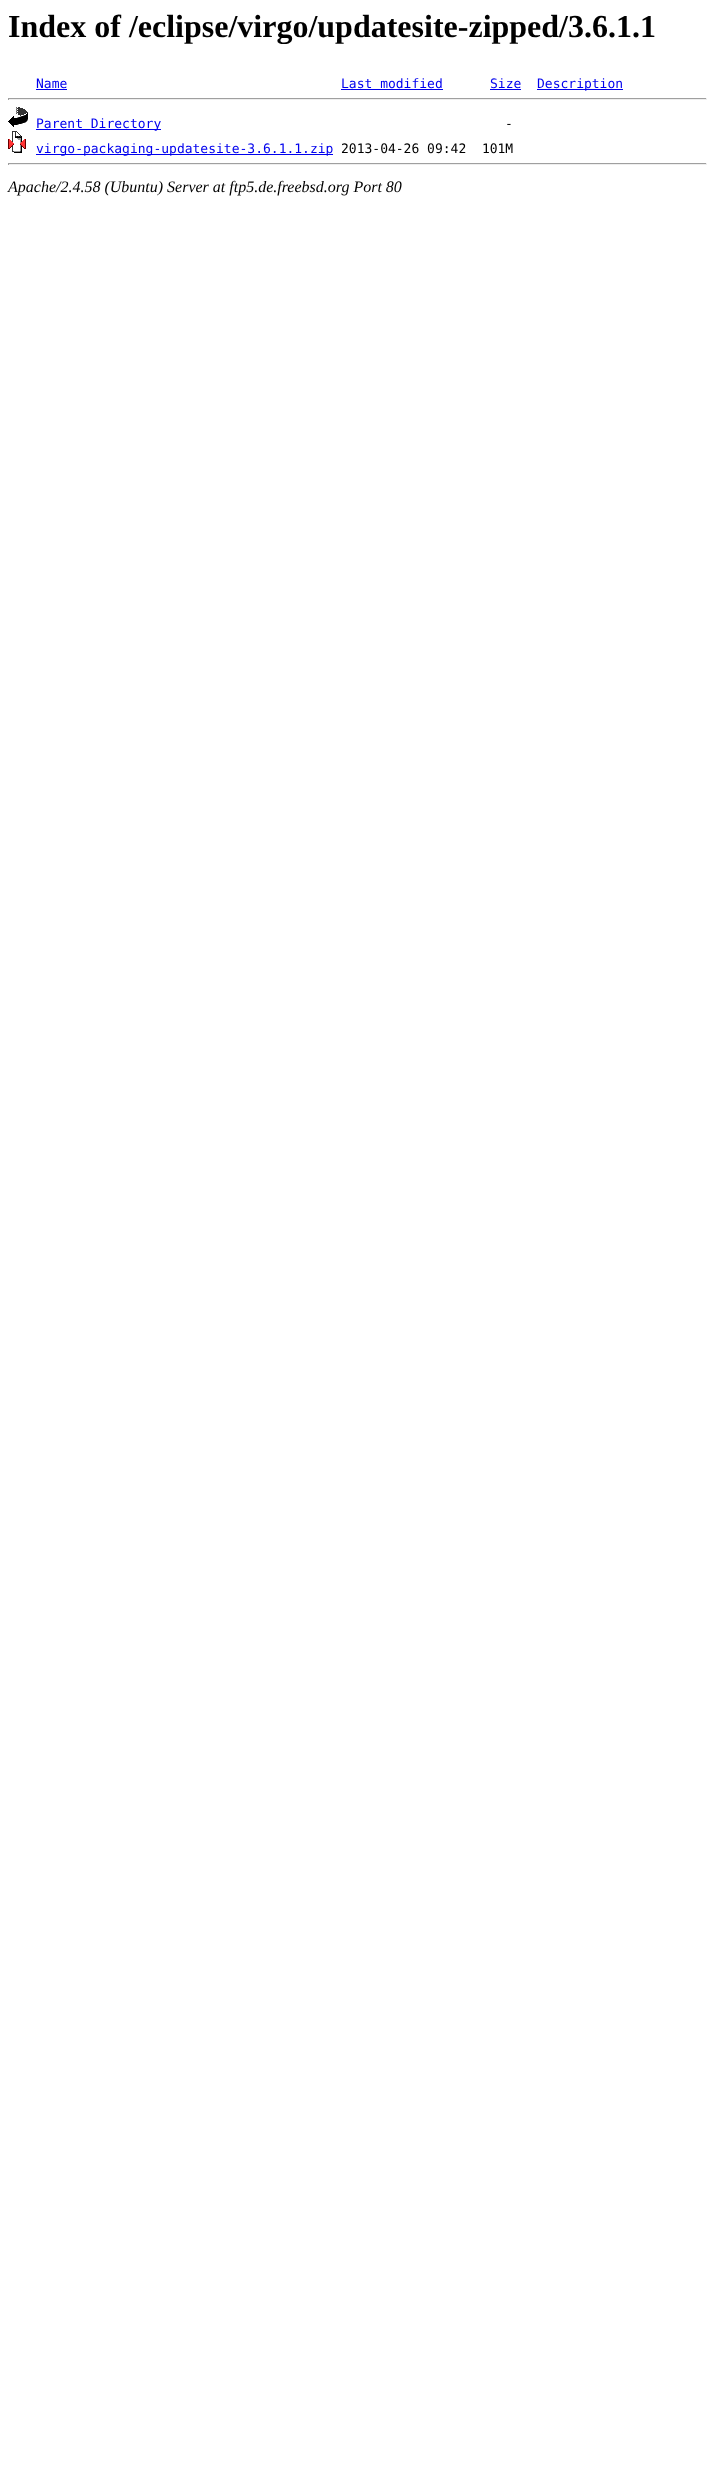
<!DOCTYPE html>
<meta charset="utf-8">
<style>body { margin: 0 } canvas { display: block }</style>
<canvas id="canvas" width="715" height="2484"></canvas>
<script type="module">
  const canvas = document.getElementById("canvas");
  const ctx = canvas.getContext("2d");
  ctx.miterLimit = 4;
  ctx.fontKerning = "normal";
  async function loadImage(src) {
    const img = new Image();
    img.src = src;
    await img.decode();
    return img;
  }

  ctx.fillStyle = "#ffffff";
  ctx.fillRect(0, 0, 715, 2484);
  ctx.font = "bold 32px Liberation Serif";
  ctx.fillStyle = "#000000";
  ctx.fillText("Index of /eclipse/virgo/updatesite-zipped/3.6.1.1", 8, 37);
  ctx.font = "13px DejaVu Sans Mono";
  ctx.fillStyle = "#0000ee";
  ctx.fillText("Name", 36, 88);
  ctx.fillRect(36, 89, 31, 1);
  ctx.fillText("Last modified", 341, 88);
  ctx.fillRect(341, 89, 102, 1);
  ctx.fillText("Size", 490, 88);
  ctx.fillRect(490, 89, 31, 1);
  ctx.fillRect(537, 89, 86, 1);
  ctx.fillText("Description", 537, 88);
  ctx.fillStyle = "#9f9f9f";
  ctx.fillRect(8, 98, 699, 1);
  ctx.fillStyle = "#eeeeee";
  ctx.fillRect(706, 98, 1, 2);
  ctx.fillRect(8, 99, 699, 1);
  ctx.fillStyle = "#9f9f9f";
  ctx.fillRect(8, 98, 1, 2);
  ctx.drawImage(await loadImage("img1.png"), 8, 107, 20, 20);
  ctx.fillStyle = "#0000ee";
  ctx.fillRect(36, 129, 125, 1);
  ctx.fillText("Parent Directory", 36, 128);
  ctx.fillStyle = "#000000";
  ctx.fillText("-", 505, 128);
  ctx.drawImage(await loadImage("img2.png"), 8, 131, 18, 22);
  ctx.fillStyle = "#0000ee";
  ctx.fillRect(36, 154, 297, 1);
  ctx.fillText("virgo-packaging-updatesite-3.6.1.1.zip", 36, 153);
  ctx.fillStyle = "#000000";
  ctx.fillText("2013-04-26 09:42  101M", 341, 153);
  ctx.fillStyle = "#9f9f9f";
  ctx.fillRect(8, 163, 699, 1);
  ctx.fillStyle = "#eeeeee";
  ctx.fillRect(706, 163, 1, 2);
  ctx.fillRect(8, 164, 699, 1);
  ctx.fillStyle = "#9f9f9f";
  ctx.fillRect(8, 163, 1, 2);
  ctx.font = "italic 16px Liberation Serif";
  ctx.fillStyle = "#000000";
  ctx.fillText("Apache/2.4.58 (Ubuntu) Server at ftp5.de.freebsd.org Port 80", 8, 192);
</script>
